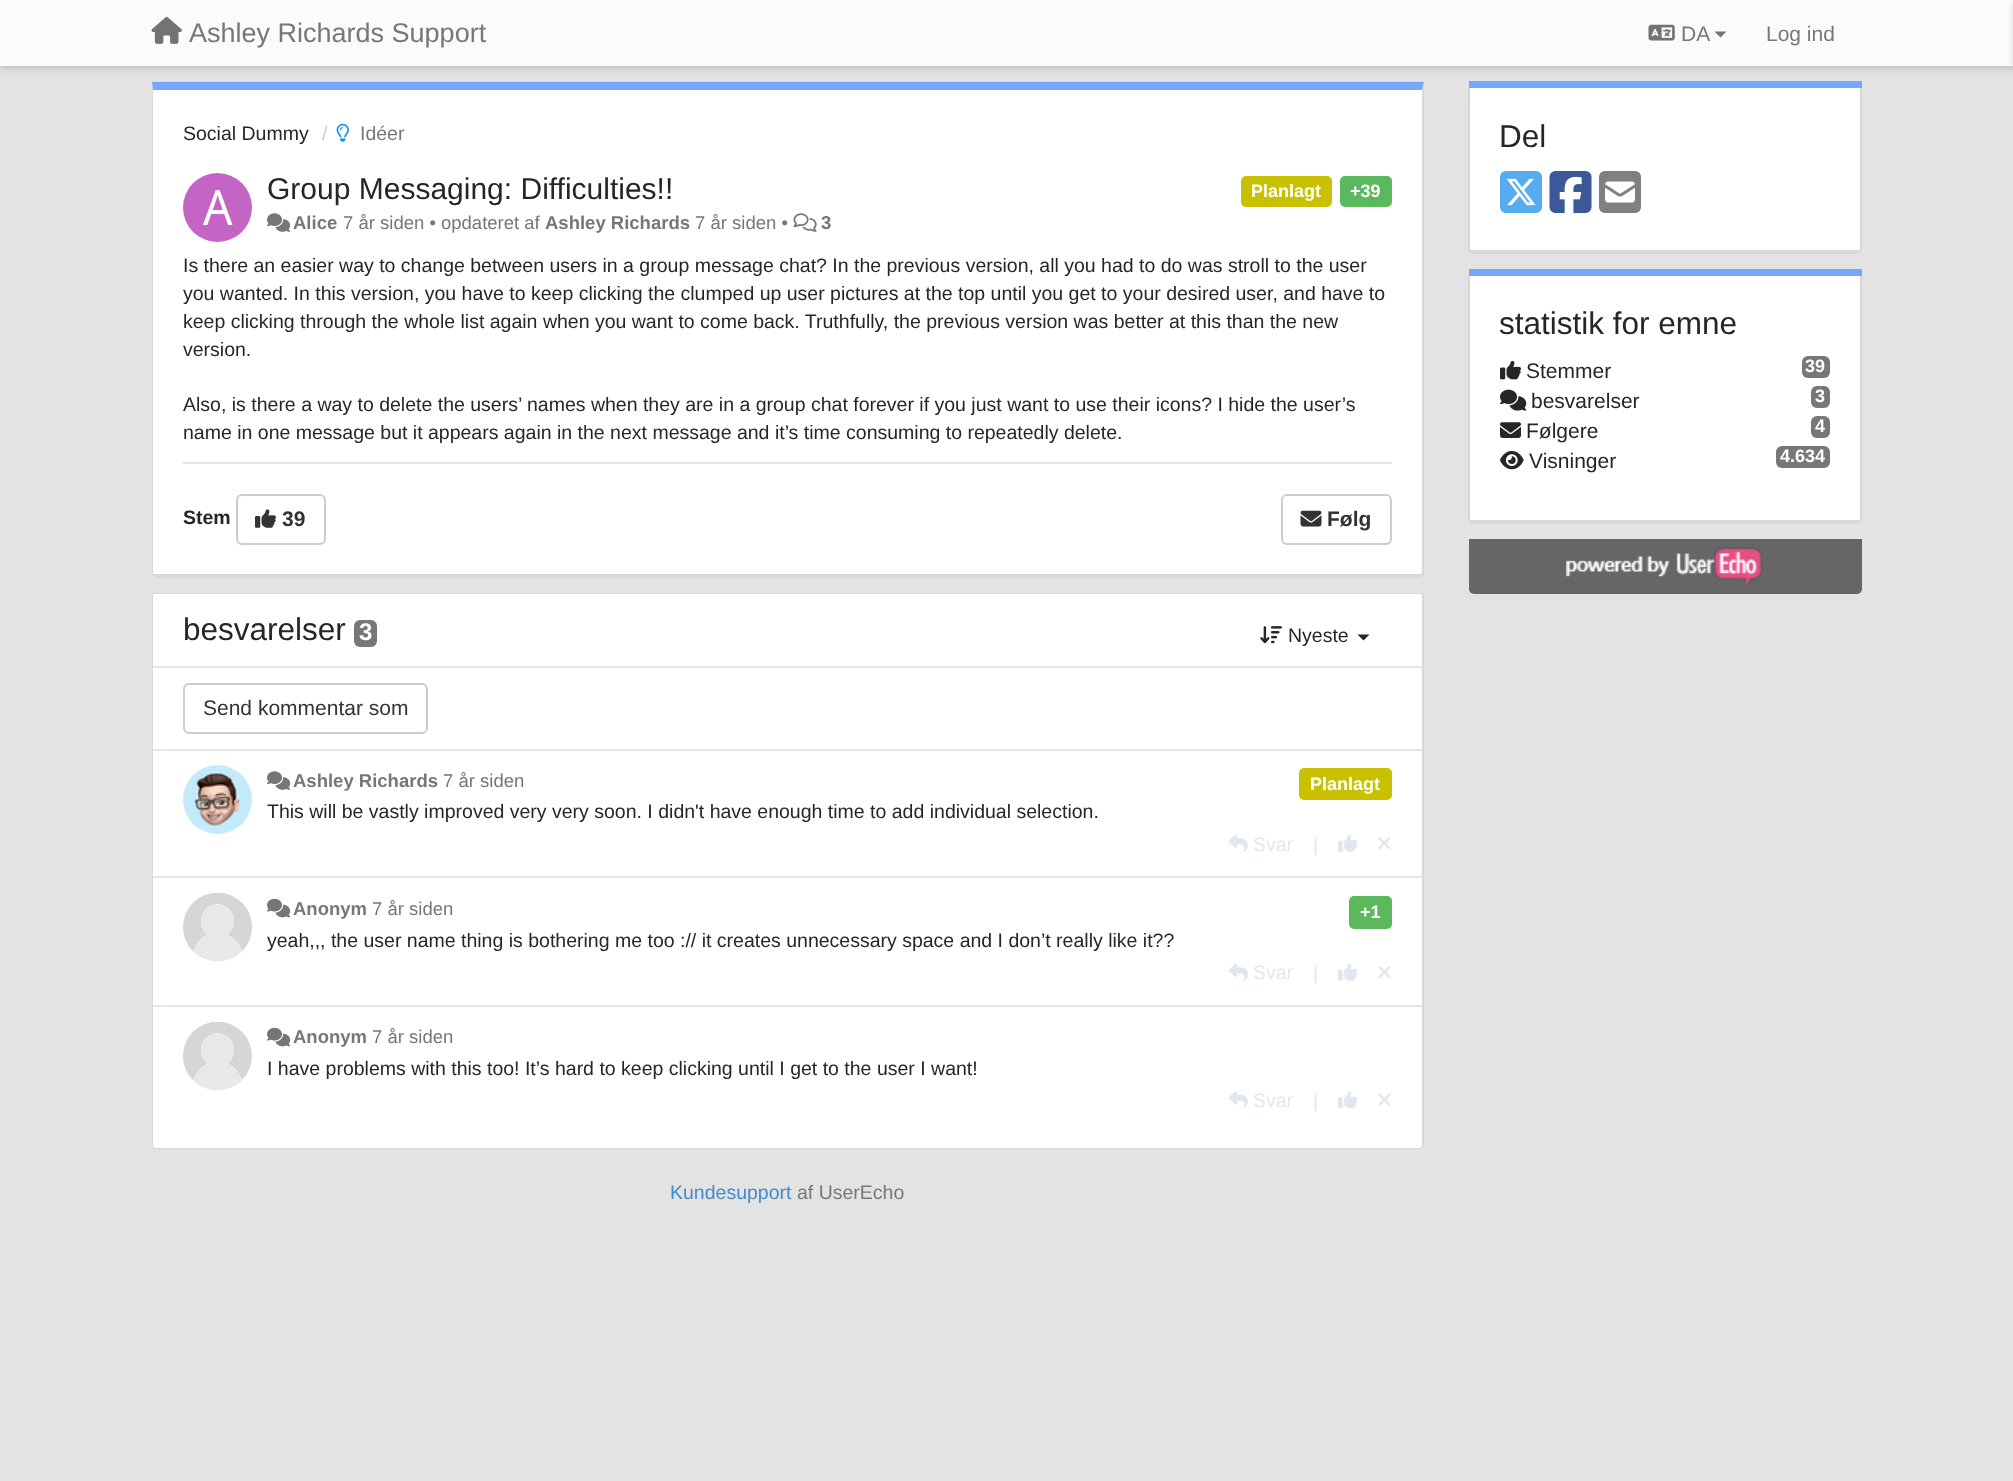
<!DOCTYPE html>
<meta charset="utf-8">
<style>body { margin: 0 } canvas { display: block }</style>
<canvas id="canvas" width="2013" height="1481"></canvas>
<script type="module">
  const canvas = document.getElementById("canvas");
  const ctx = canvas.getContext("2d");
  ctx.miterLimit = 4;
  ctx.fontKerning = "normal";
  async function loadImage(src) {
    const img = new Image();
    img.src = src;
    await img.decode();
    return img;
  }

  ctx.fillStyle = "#e3e3e3";
  ctx.fillRect(0, 0, 2013, 1481);
  ctx.fillStyle = "rgba(0, 0, 0, 0.15)";
  ctx.filter = "blur(3px)";
  ctx.beginPath();
  ctx.rect(0, 3, 2013, 66);
  ctx.fill();
  ctx.filter = "none";
  ctx.fillStyle = "#fbfbfb";
  ctx.fillRect(0, 0, 2013, 66);
  ctx.drawImage(await loadImage("img1.png"), 151, 16, 31, 28);
  ctx.save();
  ctx.beginPath();
  ctx.rect(189, 18, 297, 30);
  ctx.clip();
  ctx.font = "27px Liberation Sans";
  ctx.fillStyle = "#777777";
  ctx.fillText("Ashley Richards Support", 189, 42);
  ctx.restore();
  ctx.drawImage(await loadImage("img2.png"), 1648, 24, 27, 17);
  ctx.font = "21px Liberation Sans";
  ctx.fillStyle = "#777777";
  ctx.fillText("DA", 1681, 41);
  ctx.fillStyle = "#737373";
  ctx.beginPath();
  ctx.moveTo(1714.5, 31.5);
  ctx.lineTo(1726.5, 31.5);
  ctx.lineTo(1720.5, 37.5);
  ctx.closePath();
  ctx.fill();
  ctx.fillStyle = "#777777";
  ctx.fillText("Log ind", 1766, 41);
  ctx.fillStyle = "rgba(0, 0, 0, 0.15)";
  ctx.filter = "blur(3px)";
  ctx.beginPath();
  ctx.rect(2013, 3, 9, 66);
  ctx.fill();
  ctx.filter = "none";
  ctx.fillStyle = "#d8d8d8";
  ctx.fillRect(152, 81, 1272, 2);
  ctx.fillStyle = "#ffffff";
  ctx.beginPath();
  ctx.moveTo(153, 90);
  ctx.lineTo(1422, 90);
  ctx.lineTo(1422, 573);
  ctx.bezierCurveTo(1422, 574, 1421, 574, 1419, 574);
  ctx.lineTo(156, 574);
  ctx.bezierCurveTo(154, 574, 153, 574, 153, 573);
  ctx.closePath();
  ctx.fill();
  ctx.fillStyle = "#76a7fa";
  ctx.beginPath();
  ctx.moveTo(153, 90);
  ctx.lineTo(152, 82);
  ctx.lineTo(1424, 82);
  ctx.lineTo(1422, 90);
  ctx.closePath();
  ctx.fill();
  ctx.fillStyle = "#d8d8d8";
  ctx.beginPath();
  ctx.moveTo(1424, 82);
  ctx.lineTo(1424, 575);
  ctx.lineTo(1423, 576);
  ctx.lineTo(1422, 574);
  ctx.lineTo(1422, 573);
  ctx.lineTo(1422, 90);
  ctx.closePath();
  ctx.fill();
  ctx.beginPath();
  ctx.moveTo(155, 578);
  ctx.lineTo(153, 575);
  ctx.lineTo(153, 574);
  ctx.lineTo(1422, 574);
  ctx.lineTo(1423, 576);
  ctx.lineTo(1421, 578);
  ctx.closePath();
  ctx.fill();
  ctx.beginPath();
  ctx.moveTo(153, 90);
  ctx.lineTo(153, 573);
  ctx.lineTo(153, 574);
  ctx.lineTo(153, 575);
  ctx.lineTo(152, 573);
  ctx.lineTo(152, 85);
  ctx.closePath();
  ctx.fill();
  ctx.font = "19.5px Liberation Sans";
  ctx.fillStyle = "#262626";
  ctx.fillText("Social Dummy", 183, 140);
  ctx.fillStyle = "#cccccc";
  ctx.fillText("/", 322, 140);
  ctx.drawImage(await loadImage("img3.png"), 336, 123, 13, 19);
  ctx.fillStyle = "#777777";
  ctx.fillText("Idéer", 360, 140);
  ctx.fillStyle = "#c464c4";
  ctx.beginPath();
  ctx.arc(217.5, 207.5, 34.5, 0, Math.PI * 2);
  ctx.fill();
  ctx.drawImage(await loadImage("img4.png"), 203, 190, 30, 35);
  ctx.font = "30px Liberation Sans";
  ctx.fillStyle = "#262626";
  ctx.fillText("Group Messaging: Difficulties!!", 267, 199);
  ctx.fillStyle = "#c9c100";
  ctx.beginPath();
  ctx.roundRect(1241, 176, 91, 31, 5);
  ctx.fill();
  ctx.font = "bold 18px Liberation Sans";
  ctx.fillStyle = "#ffffff";
  ctx.fillText("Planlagt", 1251, 197);
  ctx.fillStyle = "#5cb85c";
  ctx.beginPath();
  ctx.roundRect(1340, 176, 52, 31, 5);
  ctx.fill();
  ctx.fillStyle = "#ffffff";
  ctx.fillText("+39", 1350, 197);
  ctx.drawImage(await loadImage("img5.png"), 267, 213, 24, 19);
  ctx.font = "bold 18.5px Liberation Sans";
  ctx.fillStyle = "#777777";
  ctx.fillText("Alice", 293, 229);
  ctx.font = "18.5px Liberation Sans";
  ctx.fillText("7 år siden • opdateret af", 343, 229);
  ctx.font = "bold 18.5px Liberation Sans";
  ctx.fillText("Ashley Richards", 545, 229);
  ctx.font = "18.5px Liberation Sans";
  ctx.fillText("7 år siden •", 695, 229);
  ctx.drawImage(await loadImage("img6.png"), 793, 213, 24, 19);
  ctx.font = "bold 18.5px Liberation Sans";
  ctx.fillText("3", 821, 229);
  ctx.font = "19.5px Liberation Sans";
  ctx.fillStyle = "#262626";
  ctx.fillText("Is there an easier way to change between users in a group message chat? In the previous version, all you had to do was stroll to the user", 183, 272);
  ctx.fillText("you wanted. In this version, you have to keep clicking the clumped up user pictures at the top until you get to your desired user, and have to", 183, 300);
  ctx.fillText("keep clicking through the whole list again when you want to come back. Truthfully, the previous version was better at this than the new", 183, 328);
  ctx.fillText("version.", 183, 356);
  ctx.fillText("Also, is there a way to delete the users’ names when they are in a group chat forever if you just want to use their icons? I hide the user’s", 183, 411);
  ctx.fillText("name in one message but it appears again in the next message and it’s time consuming to repeatedly delete.", 183, 439);
  ctx.fillStyle = "#e5e5e5";
  ctx.fillRect(183, 462, 1209, 2);
  ctx.font = "bold 19.5px Liberation Sans";
  ctx.fillStyle = "#262626";
  ctx.fillText("Stem", 183, 524);
  ctx.beginPath();
  ctx.roundRect(237, 495, 88, 49, 5);
  ctx.strokeStyle = "#cccccc";
  ctx.lineWidth = 2;
  ctx.stroke();
  ctx.drawImage(await loadImage("img7.png"), 255, 509, 21, 19);
  ctx.font = "bold 21px Liberation Sans";
  ctx.fillStyle = "#333333";
  ctx.fillText("39", 282, 526);
  ctx.beginPath();
  ctx.roundRect(1282, 495, 109, 49, 5);
  ctx.stroke();
  ctx.drawImage(await loadImage("img8.png"), 1300, 510, 22, 17);
  ctx.fillText("Følg", 1327, 526);
  ctx.fillStyle = "#d8d8d8";
  ctx.fillRect(152, 593, 1272, 1);
  ctx.fillStyle = "#ffffff";
  ctx.beginPath();
  ctx.roundRect(153, 594, 1269, 554, [0, 0, 3, 3]);
  ctx.fill();
  ctx.fillStyle = "#d8d8d8";
  ctx.beginPath();
  ctx.moveTo(152, 594);
  ctx.lineTo(1424, 594);
  ctx.lineTo(1424, 1144);
  ctx.bezierCurveTo(1424, 1147, 1421, 1149, 1419, 1149);
  ctx.lineTo(156, 1149);
  ctx.bezierCurveTo(154, 1149, 152, 1147, 152, 1144);
  ctx.closePath();
  ctx.moveTo(153, 594);
  ctx.lineTo(1422, 594);
  ctx.lineTo(1422, 1144);
  ctx.bezierCurveTo(1422, 1146, 1421, 1148, 1419, 1148);
  ctx.lineTo(156, 1148);
  ctx.bezierCurveTo(154, 1148, 153, 1146, 153, 1144);
  ctx.closePath();
  ctx.fill("evenodd");
  ctx.font = "31.5px Liberation Sans";
  ctx.fillStyle = "#262626";
  ctx.fillText("besvarelser", 183, 640);
  ctx.fillStyle = "#777777";
  ctx.beginPath();
  ctx.roundRect(354, 620, 23, 27, 6);
  ctx.fill();
  ctx.font = "bold 24px Liberation Sans";
  ctx.fillStyle = "#ffffff";
  ctx.fillText("3", 359, 640);
  ctx.drawImage(await loadImage("img9.png"), 1260, 626, 22, 18);
  ctx.font = "19.5px Liberation Sans";
  ctx.fillStyle = "#262626";
  ctx.fillText("Nyeste", 1288, 642);
  ctx.beginPath();
  ctx.moveTo(1357.5, 634.5);
  ctx.lineTo(1369.5, 634.5);
  ctx.lineTo(1363.5, 640.5);
  ctx.closePath();
  ctx.fill();
  ctx.fillStyle = "#e1e8ed";
  ctx.fillRect(153, 666, 1269, 2);
  ctx.fillRect(153, 749, 1269, 2);
  ctx.beginPath();
  ctx.roundRect(184, 684, 243, 49, 5);
  ctx.stroke();
  ctx.font = "21px Liberation Sans";
  ctx.fillStyle = "#333333";
  ctx.fillText("Send kommentar som", 203, 715);
  ctx.fillStyle = "#e1e8ed";
  ctx.fillRect(153, 876, 1269, 2);
  ctx.drawImage(await loadImage("img10.png"), 183, 765, 69, 69);
  ctx.drawImage(await loadImage("img5.png"), 267, 771, 24, 19);
  ctx.font = "bold 18.5px Liberation Sans";
  ctx.fillStyle = "#777777";
  ctx.fillText("Ashley Richards", 293, 787);
  ctx.font = "18.5px Liberation Sans";
  ctx.fillText("7 år siden", 443, 787);
  ctx.fillStyle = "#c9c100";
  ctx.beginPath();
  ctx.roundRect(1299, 768, 93, 32, 5);
  ctx.fill();
  ctx.font = "bold 18px Liberation Sans";
  ctx.fillStyle = "#ffffff";
  ctx.fillText("Planlagt", 1310, 790);
  ctx.font = "19.5px Liberation Sans";
  ctx.fillStyle = "#262626";
  ctx.fillText("This will be vastly improved very very soon. I didn't have enough time to add individual selection.", 267, 818);
  ctx.drawImage(await loadImage("img11.png"), 1228, 834, 20, 18);
  ctx.fillStyle = "#e1e8ed";
  ctx.fillText("Svar", 1253, 851);
  ctx.fillText("|", 1313, 851);
  ctx.drawImage(await loadImage("img12.png"), 1338, 834, 20, 18);
  ctx.drawImage(await loadImage("img13.png"), 1378, 837, 13, 13);
  ctx.fillRect(153, 1005, 1269, 2);
  ctx.drawImage(await loadImage("img14.png"), 183, 892, 69, 70);
  ctx.drawImage(await loadImage("img15.png"), 267, 898, 24, 20);
  ctx.font = "bold 18.5px Liberation Sans";
  ctx.fillStyle = "#777777";
  ctx.fillText("Anonym", 293, 915);
  ctx.font = "18.5px Liberation Sans";
  ctx.fillText("7 år siden", 372, 915);
  ctx.fillStyle = "#5cb85c";
  ctx.beginPath();
  ctx.roundRect(1349, 896, 43, 33, 5);
  ctx.fill();
  ctx.font = "bold 18px Liberation Sans";
  ctx.fillStyle = "#ffffff";
  ctx.fillText("+1", 1360, 918);
  ctx.font = "19.5px Liberation Sans";
  ctx.fillStyle = "#262626";
  ctx.fillText("yeah,,, the user name thing is bothering me too :// it creates unnecessary space and I don’t really like it??", 267, 947);
  ctx.drawImage(await loadImage("img11.png"), 1228, 963, 20, 18);
  ctx.fillStyle = "#e1e8ed";
  ctx.fillText("Svar", 1253, 979);
  ctx.fillText("|", 1313, 979);
  ctx.drawImage(await loadImage("img12.png"), 1338, 963, 20, 18);
  ctx.drawImage(await loadImage("img13.png"), 1378, 966, 13, 13);
  ctx.drawImage(await loadImage("img14.png"), 183, 1021, 69, 70);
  ctx.drawImage(await loadImage("img15.png"), 267, 1027, 24, 20);
  ctx.font = "bold 18.5px Liberation Sans";
  ctx.fillStyle = "#777777";
  ctx.fillText("Anonym", 293, 1043);
  ctx.font = "18.5px Liberation Sans";
  ctx.fillText("7 år siden", 372, 1043);
  ctx.font = "19.5px Liberation Sans";
  ctx.fillStyle = "#262626";
  ctx.fillText("I have problems with this too! It’s hard to keep clicking until I get to the user I want!", 267, 1075);
  ctx.drawImage(await loadImage("img16.png"), 1228, 1091, 20, 17);
  ctx.fillStyle = "#e1e8ed";
  ctx.fillText("Svar", 1253, 1107);
  ctx.fillText("|", 1313, 1107);
  ctx.drawImage(await loadImage("img17.png"), 1338, 1091, 20, 18);
  ctx.drawImage(await loadImage("img18.png"), 1378, 1093, 13, 13);
  ctx.fillStyle = "#428bca";
  ctx.fillText("Kundesupport", 670, 1199);
  ctx.fillStyle = "#777777";
  ctx.fillText("af UserEcho", 797, 1199);
  ctx.fillStyle = "#76a7fa";
  ctx.fillRect(1469, 81, 393, 7);
  ctx.fillStyle = "#ffffff";
  ctx.beginPath();
  ctx.moveTo(1470, 88);
  ctx.lineTo(1860, 88);
  ctx.lineTo(1860, 249);
  ctx.bezierCurveTo(1860, 250, 1859, 250, 1857, 250);
  ctx.lineTo(1473, 250);
  ctx.bezierCurveTo(1471, 250, 1470, 250, 1470, 249);
  ctx.closePath();
  ctx.fill();
  ctx.fillStyle = "#d8d8d8";
  ctx.beginPath();
  ctx.moveTo(1468, 88);
  ctx.lineTo(1862, 88);
  ctx.lineTo(1862, 249);
  ctx.bezierCurveTo(1862, 251, 1859, 254, 1857, 254);
  ctx.lineTo(1473, 254);
  ctx.bezierCurveTo(1471, 254, 1468, 251, 1468, 249);
  ctx.closePath();
  ctx.moveTo(1470, 88);
  ctx.lineTo(1860, 88);
  ctx.lineTo(1860, 249);
  ctx.bezierCurveTo(1860, 250, 1859, 250, 1857, 250);
  ctx.lineTo(1473, 250);
  ctx.bezierCurveTo(1471, 250, 1470, 250, 1470, 249);
  ctx.closePath();
  ctx.fill("evenodd");
  ctx.font = "31.5px Liberation Sans";
  ctx.fillStyle = "#262626";
  ctx.fillText("Del", 1499, 147);
  ctx.drawImage(await loadImage("img19.png"), 1500, 171, 42, 42);
  ctx.drawImage(await loadImage("img20.png"), 1549, 171, 43, 42);
  ctx.drawImage(await loadImage("img21.png"), 1599, 171, 42, 42);
  ctx.fillStyle = "#76a7fa";
  ctx.fillRect(1469, 269, 393, 7);
  ctx.fillStyle = "#ffffff";
  ctx.beginPath();
  ctx.moveTo(1470, 276);
  ctx.lineTo(1860, 276);
  ctx.lineTo(1860, 519);
  ctx.bezierCurveTo(1860, 520, 1859, 520, 1857, 520);
  ctx.lineTo(1473, 520);
  ctx.bezierCurveTo(1471, 520, 1470, 520, 1470, 519);
  ctx.closePath();
  ctx.fill();
  ctx.fillStyle = "#d8d8d8";
  ctx.beginPath();
  ctx.moveTo(1468, 276);
  ctx.lineTo(1862, 276);
  ctx.lineTo(1862, 519);
  ctx.bezierCurveTo(1862, 521, 1859, 524, 1857, 524);
  ctx.lineTo(1473, 524);
  ctx.bezierCurveTo(1471, 524, 1468, 521, 1468, 519);
  ctx.closePath();
  ctx.moveTo(1470, 276);
  ctx.lineTo(1860, 276);
  ctx.lineTo(1860, 519);
  ctx.bezierCurveTo(1860, 520, 1859, 520, 1857, 520);
  ctx.lineTo(1473, 520);
  ctx.bezierCurveTo(1471, 520, 1470, 520, 1470, 519);
  ctx.closePath();
  ctx.fill("evenodd");
  ctx.fillStyle = "#262626";
  ctx.fillText("statistik for emne", 1499, 334);
  ctx.drawImage(await loadImage("img22.png"), 1500, 361, 21, 19);
  ctx.font = "21px Liberation Sans";
  ctx.fillText("Stemmer", 1526, 378);
  ctx.fillStyle = "#777777";
  ctx.beginPath();
  ctx.roundRect(1802, 356, 28, 22, 6);
  ctx.fill();
  ctx.font = "bold 18px Liberation Sans";
  ctx.fillStyle = "#ffffff";
  ctx.fillText("39", 1805, 372);
  ctx.drawImage(await loadImage("img23.png"), 1500, 389, 27, 22);
  ctx.font = "21px Liberation Sans";
  ctx.fillStyle = "#262626";
  ctx.fillText("besvarelser", 1531, 408);
  ctx.fillStyle = "#777777";
  ctx.beginPath();
  ctx.roundRect(1811, 386, 19, 22, 6);
  ctx.fill();
  ctx.font = "bold 18px Liberation Sans";
  ctx.fillStyle = "#ffffff";
  ctx.fillText("3", 1815, 402);
  ctx.drawImage(await loadImage("img24.png"), 1500, 422, 21, 16);
  ctx.font = "21px Liberation Sans";
  ctx.fillStyle = "#262626";
  ctx.fillText("Følgere", 1526, 438);
  ctx.fillStyle = "#777777";
  ctx.beginPath();
  ctx.roundRect(1811, 416, 19, 22, 6);
  ctx.fill();
  ctx.font = "bold 18px Liberation Sans";
  ctx.fillStyle = "#ffffff";
  ctx.fillText("4", 1815, 432);
  ctx.drawImage(await loadImage("img25.png"), 1500, 450, 24, 20);
  ctx.font = "21px Liberation Sans";
  ctx.fillStyle = "#262626";
  ctx.fillText("Visninger", 1529, 468);
  ctx.fillStyle = "#777777";
  ctx.beginPath();
  ctx.roundRect(1776, 446, 54, 22, 6);
  ctx.fill();
  ctx.font = "bold 18px Liberation Sans";
  ctx.fillStyle = "#ffffff";
  ctx.fillText("4.634", 1780, 462);
  ctx.fillStyle = "#666666";
  ctx.beginPath();
  ctx.roundRect(1469, 539, 393, 55, [0, 0, 5, 5]);
  ctx.fill();
  ctx.drawImage(await loadImage("img26.png"), 1566, 547, 197, 39);
</script>
